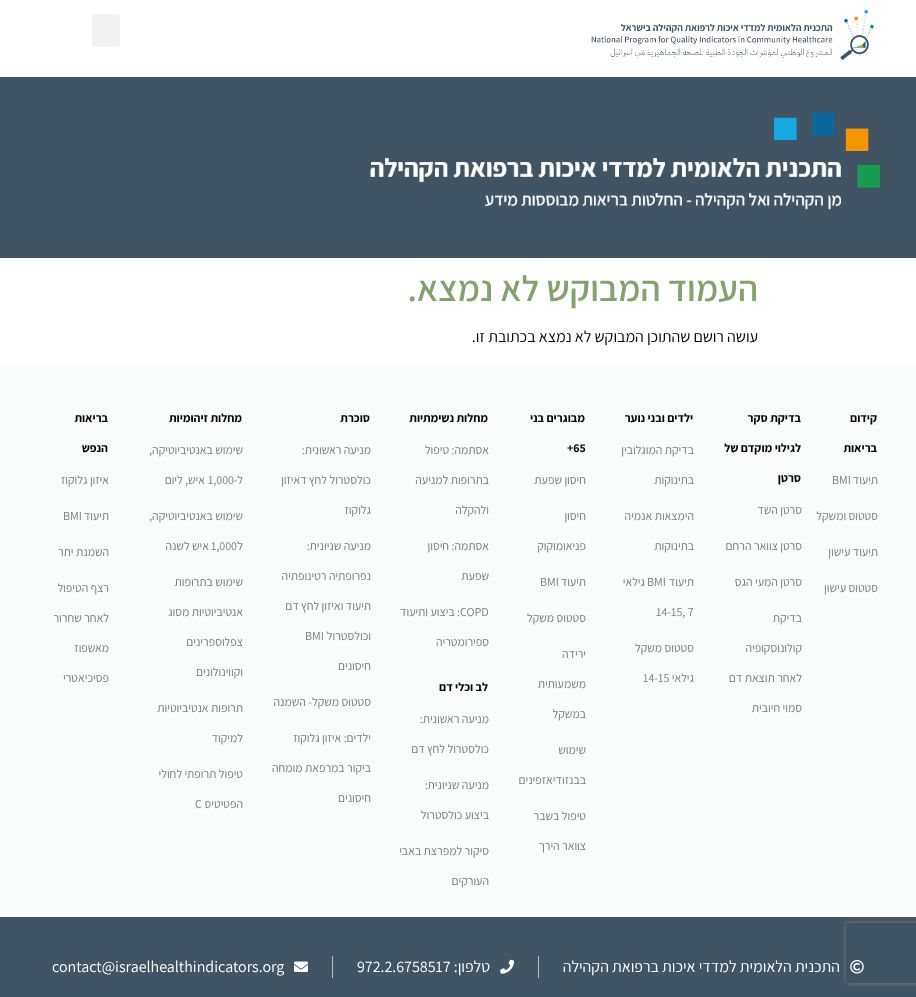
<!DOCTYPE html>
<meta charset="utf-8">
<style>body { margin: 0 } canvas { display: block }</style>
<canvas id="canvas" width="916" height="997"></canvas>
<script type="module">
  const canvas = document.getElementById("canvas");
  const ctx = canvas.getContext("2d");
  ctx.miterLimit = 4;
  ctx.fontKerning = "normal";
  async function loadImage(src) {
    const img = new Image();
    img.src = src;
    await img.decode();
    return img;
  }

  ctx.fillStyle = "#ffffff";
  ctx.fillRect(0, 0, 916, 997);
  ctx.drawImage(await loadImage("img1.png"), 591, 10, 283, 50);
  ctx.fillStyle = "#f2f2f2";
  ctx.beginPath();
  ctx.roundRect(92, 14, 28, 33, 3);
  ctx.fill();
  ctx.fillStyle = "#415464";
  ctx.fillRect(0, 77, 916, 181);
  ctx.drawImage(await loadImage("img2.png"), 370, 113, 510, 97);
  ctx.direction = "rtl";
  ctx.font = "600 36px Assistant";
  ctx.fillStyle = "#83a26d";
  ctx.fillText("העמוד המבוקש לא נמצא.", 758, 301);
  ctx.font = "16px Assistant";
  ctx.fillStyle = "#000000";
  ctx.fillText("עושה רושם שהתוכן המבוקש לא נמצא בכתובת זו.", 758, 342);
  ctx.fillStyle = "#fafbfb";
  ctx.fillRect(0, 364, 916, 553);
  ctx.font = "bold 12px Assistant";
  ctx.fillStyle = "#000000";
  ctx.fillText("קידום", 877, 422);
  ctx.fillText("בריאות", 877, 452);
  ctx.font = "12px Assistant";
  ctx.fillStyle = "#7a7a7a";
  ctx.fillText("תיעוד", 878, 484);
  ctx.direction = "ltr";
  ctx.fillText("BMI", 832, 484);
  ctx.direction = "rtl";
  ctx.fillText("סטטוס ומשקל", 878, 520);
  ctx.fillText("תיעוד עישון", 878, 556);
  ctx.fillText("סטטוס עישון", 878, 592);
  ctx.font = "bold 12px Assistant";
  ctx.fillStyle = "#000000";
  ctx.fillText("בדיקת סקר", 801, 422);
  ctx.fillText("לגילוי מוקדם של", 801, 452);
  ctx.fillText("סרטן", 801, 482);
  ctx.font = "12px Assistant";
  ctx.fillStyle = "#7a7a7a";
  ctx.fillText("סרטן השד", 802, 514);
  ctx.fillText("סרטן צוואר הרחם", 802, 550);
  ctx.fillText("סרטן המעי הגס", 802, 586);
  ctx.fillText("בדיקת", 802, 622);
  ctx.fillText("קולונוסקופיה", 802, 652);
  ctx.fillText("לאחר תוצאת דם", 802, 682);
  ctx.fillText("סמוי חיובית", 802, 712);
  ctx.font = "bold 12px Assistant";
  ctx.fillStyle = "#000000";
  ctx.fillText("ילדים ובני נוער", 693, 422);
  ctx.font = "12px Assistant";
  ctx.fillStyle = "#7a7a7a";
  ctx.fillText("בדיקת המוגלובין", 694, 454);
  ctx.fillText("בתינוקות", 694, 484);
  ctx.fillText("הימצאות אנמיה", 694, 520);
  ctx.fillText("בתינוקות", 694, 550);
  ctx.fillText("תיעוד", 694, 586);
  ctx.direction = "ltr";
  ctx.fillText("BMI", 647, 586);
  ctx.direction = "rtl";
  ctx.fillText("גילאי", 645, 586);
  ctx.direction = "ltr";
  ctx.fillText("14-15, 7", 656, 616);
  ctx.direction = "rtl";
  ctx.fillText("סטטוס משקל", 694, 652);
  ctx.fillText("גילאי", 694, 682);
  ctx.direction = "ltr";
  ctx.fillText("14-15", 643, 682);
  ctx.direction = "rtl";
  ctx.font = "bold 12px Assistant";
  ctx.fillStyle = "#000000";
  ctx.fillText("מבוגרים בני", 585, 422);
  ctx.direction = "ltr";
  ctx.fillText("+65", 567, 452);
  ctx.direction = "rtl";
  ctx.font = "12px Assistant";
  ctx.fillStyle = "#7a7a7a";
  ctx.fillText("חיסון שפעת", 586, 484);
  ctx.fillText("חיסון", 586, 520);
  ctx.fillText("פניאומוקוק", 586, 550);
  ctx.fillText("תיעוד", 586, 586);
  ctx.direction = "ltr";
  ctx.fillText("BMI", 540, 586);
  ctx.direction = "rtl";
  ctx.fillText("סטטוס משקל", 586, 622);
  ctx.fillText("ירידה", 586, 658);
  ctx.fillText("משמעותית", 586, 688);
  ctx.fillText("במשקל", 586, 718);
  ctx.fillText("שימוש", 586, 754);
  ctx.fillText("בבנזודיאזפינים", 586, 784);
  ctx.fillText("טיפול בשבר", 586, 820);
  ctx.fillText("צוואר הירך", 586, 850);
  ctx.font = "bold 12px Assistant";
  ctx.fillStyle = "#000000";
  ctx.fillText("מחלות נשימתיות", 488, 422);
  ctx.font = "12px Assistant";
  ctx.fillStyle = "#7a7a7a";
  ctx.fillText("אסתמה: טיפול", 489, 454);
  ctx.fillText("בתרופות למניעה", 489, 484);
  ctx.fillText("ולהקלה", 489, 514);
  ctx.fillText("אסתמה: חיסון", 489, 550);
  ctx.fillText("שפעת", 489, 580);
  ctx.direction = "ltr";
  ctx.fillText("COPD", 460, 616);
  ctx.direction = "rtl";
  ctx.fillText(": ביצוע ותיעוד", 460, 616);
  ctx.fillText("ספירומטריה", 489, 646);
  ctx.font = "bold 12px Assistant";
  ctx.fillStyle = "#000000";
  ctx.fillText("לב וכלי דם", 488, 691);
  ctx.font = "12px Assistant";
  ctx.fillStyle = "#7a7a7a";
  ctx.fillText("מניעה ראשונית:", 489, 723);
  ctx.fillText("כולסטרול לחץ דם", 489, 753);
  ctx.fillText("מניעה שניונית:", 489, 789);
  ctx.fillText("ביצוע כולסטרול", 489, 819);
  ctx.fillText("סיקור למפרצת באבי", 489, 855);
  ctx.fillText("העורקים", 489, 885);
  ctx.font = "bold 12px Assistant";
  ctx.fillStyle = "#000000";
  ctx.fillText("סוכרת", 370, 422);
  ctx.font = "12px Assistant";
  ctx.fillStyle = "#7a7a7a";
  ctx.fillText("מניעה ראשונית:", 371, 454);
  ctx.fillText("כולסטרול לחץ דאיזון", 371, 484);
  ctx.fillText("גלוקוז", 371, 514);
  ctx.fillText("מניעה שניונית:", 371, 550);
  ctx.fillText("נפרופתיה רטינופתיה", 371, 580);
  ctx.fillText("תיעוד ואיזון לחץ דם", 371, 610);
  ctx.fillText("וכולסטרול", 371, 640);
  ctx.direction = "ltr";
  ctx.fillText("BMI", 305, 640);
  ctx.direction = "rtl";
  ctx.fillText("חיסונים", 371, 670);
  ctx.fillText("סטטוס משקל- השמנה", 371, 706);
  ctx.fillText("ילדים: איזון גלוקוז", 371, 742);
  ctx.fillText("ביקור במרפאת מומחה", 371, 772);
  ctx.fillText("חיסונים", 371, 802);
  ctx.font = "bold 12px Assistant";
  ctx.fillStyle = "#000000";
  ctx.fillText("מחלות זיהומיות", 242, 422);
  ctx.font = "12px Assistant";
  ctx.fillStyle = "#7a7a7a";
  ctx.fillText("שימוש באנטיביוטיקה,", 243, 454);
  ctx.fillText("ל-", 243, 484);
  ctx.direction = "ltr";
  ctx.fillText("1,000", 208, 484);
  ctx.direction = "rtl";
  ctx.fillText("איש, ליום", 205, 484);
  ctx.fillText("שימוש באנטיביוטיקה,", 243, 520);
  ctx.fillText("ל", 243, 550);
  ctx.direction = "ltr";
  ctx.fillText("1,000", 211, 550);
  ctx.direction = "rtl";
  ctx.fillText("איש לשנה", 209, 550);
  ctx.fillText("שימוש בתרופות", 243, 586);
  ctx.fillText("אנטיביוטיות מסוג", 243, 616);
  ctx.fillText("צפלוספרינים", 243, 646);
  ctx.fillText("וקווינולונים", 243, 676);
  ctx.fillText("תרופות אנטיביוטיות", 243, 712);
  ctx.fillText("למיקוד", 243, 742);
  ctx.fillText("טיפול תרופתי לחולי", 243, 778);
  ctx.fillText("הפטיטיס", 243, 808);
  ctx.direction = "ltr";
  ctx.fillText("C", 195, 808);
  ctx.direction = "rtl";
  ctx.font = "bold 12px Assistant";
  ctx.fillStyle = "#000000";
  ctx.fillText("בריאות", 108, 422);
  ctx.fillText("הנפש", 108, 452);
  ctx.font = "12px Assistant";
  ctx.fillStyle = "#7a7a7a";
  ctx.fillText("איזון גלוקוז", 109, 484);
  ctx.fillText("תיעוד", 109, 520);
  ctx.direction = "ltr";
  ctx.fillText("BMI", 63, 520);
  ctx.direction = "rtl";
  ctx.fillText("השמנת יתר", 109, 556);
  ctx.fillText("רצף הטיפול", 109, 592);
  ctx.fillText("לאחר שחרור", 109, 622);
  ctx.fillText("מאשפוז", 109, 652);
  ctx.fillText("פסיכיאטרי", 109, 682);
  ctx.fillStyle = "#415464";
  ctx.fillRect(0, 917, 916, 80);
  ctx.drawImage(await loadImage("img3.png"), 850, 960, 14, 14);
  ctx.font = "16px Assistant";
  ctx.fillStyle = "#ffffff";
  ctx.fillText("התכנית הלאומית למדדי איכות ברפואת הקהילה", 840, 972);
  ctx.fillStyle = "#bdbcbc";
  ctx.fillRect(538, 956, 1, 22);
  ctx.drawImage(await loadImage("img4.png"), 500, 959, 14, 15);
  ctx.fillStyle = "#ffffff";
  ctx.fillText("טלפון:", 490, 972);
  ctx.direction = "ltr";
  ctx.fillText("972.2.6758517", 357, 972);
  ctx.fillStyle = "#bdbcbc";
  ctx.fillRect(332, 956, 1, 22);
  ctx.drawImage(await loadImage("img5.png"), 294, 961, 14, 11);
  ctx.fillStyle = "#ffffff";
  ctx.fillText("contact@israelhealthindicators.org", 52, 972);
  ctx.save();
  ctx.beginPath();
  ctx.moveTo(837, 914);
  ctx.lineTo(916, 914);
  ctx.lineTo(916, 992);
  ctx.lineTo(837, 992);
  ctx.closePath();
  ctx.moveTo(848, 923);
  ctx.lineTo(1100, 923);
  ctx.bezierCurveTo(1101, 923, 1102, 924, 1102, 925);
  ctx.lineTo(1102, 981);
  ctx.bezierCurveTo(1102, 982, 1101, 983, 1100, 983);
  ctx.lineTo(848, 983);
  ctx.bezierCurveTo(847, 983, 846, 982, 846, 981);
  ctx.lineTo(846, 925);
  ctx.bezierCurveTo(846, 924, 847, 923, 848, 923);
  ctx.closePath();
  ctx.clip("evenodd");
  ctx.fillStyle = "#808080";
  ctx.filter = "blur(2.5px)";
  ctx.beginPath();
  ctx.roundRect(846, 923, 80, 60, 2);
  ctx.fill();
  ctx.filter = "none";
  ctx.restore();
</script>
